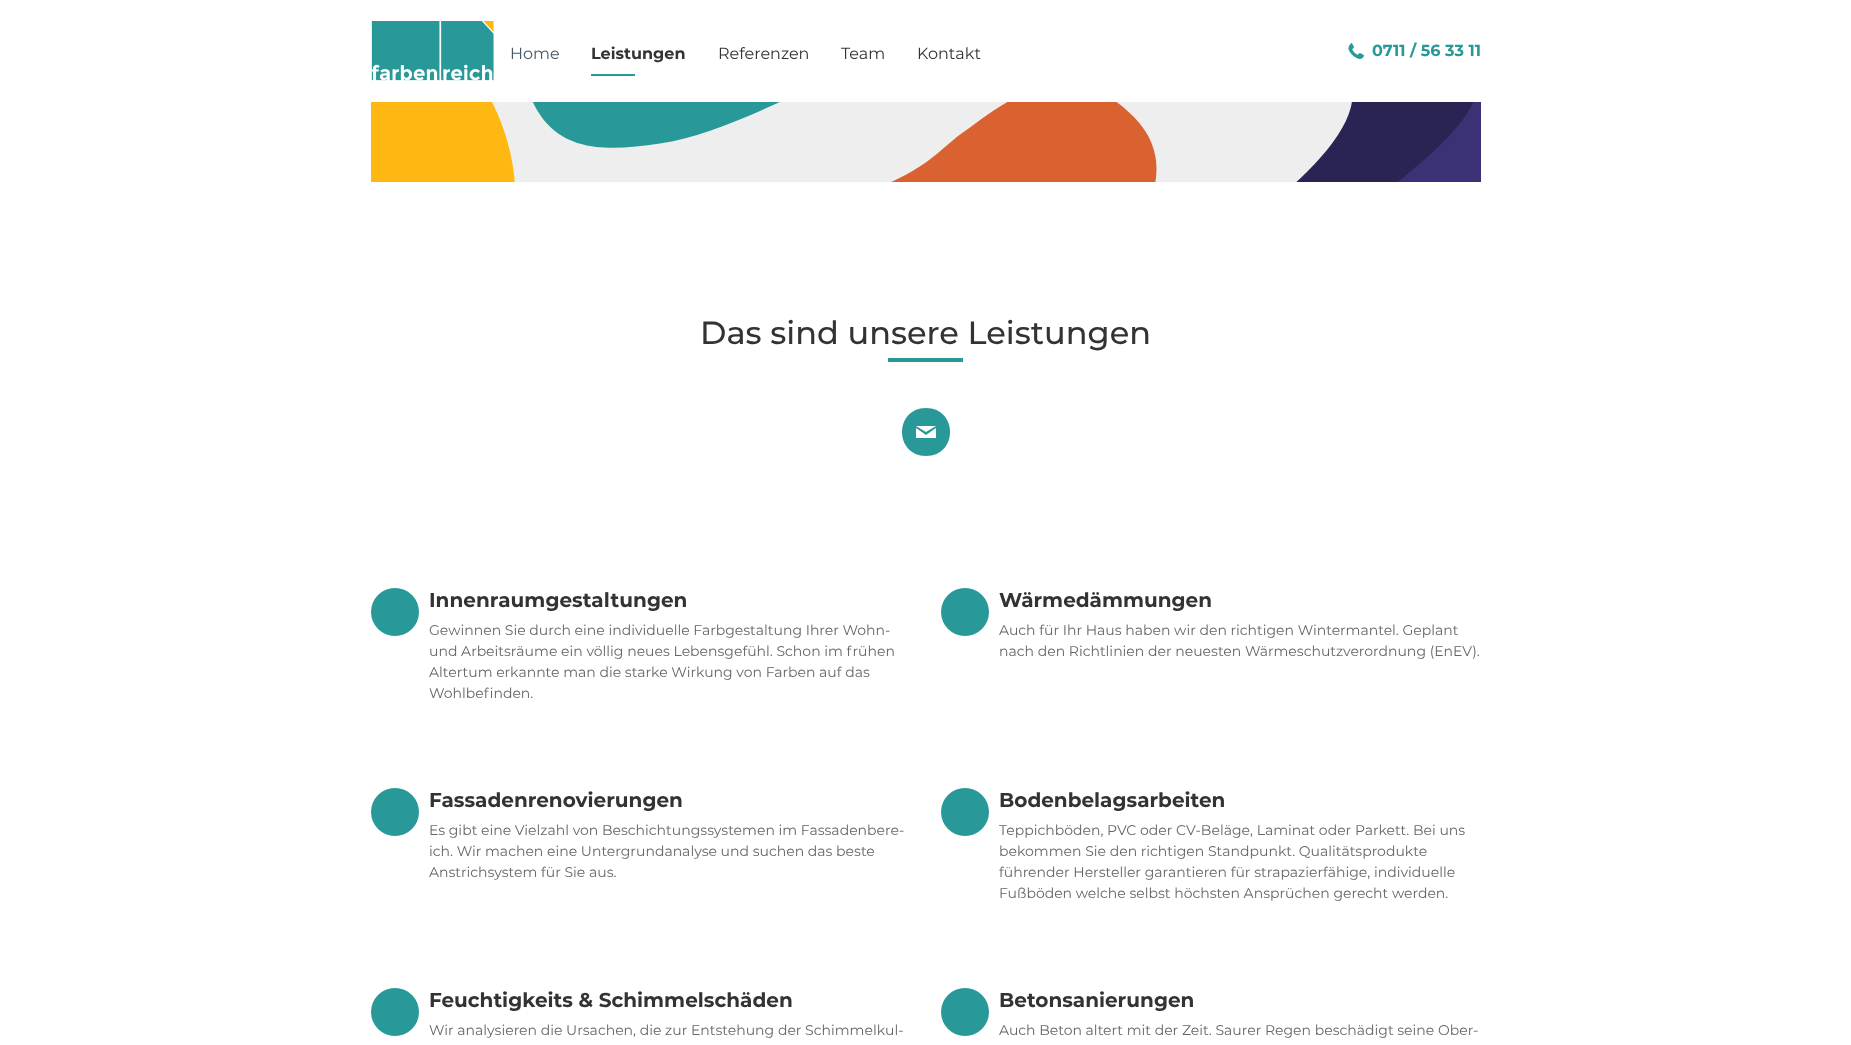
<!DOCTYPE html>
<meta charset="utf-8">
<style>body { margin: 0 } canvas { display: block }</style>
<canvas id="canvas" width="1851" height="1045"></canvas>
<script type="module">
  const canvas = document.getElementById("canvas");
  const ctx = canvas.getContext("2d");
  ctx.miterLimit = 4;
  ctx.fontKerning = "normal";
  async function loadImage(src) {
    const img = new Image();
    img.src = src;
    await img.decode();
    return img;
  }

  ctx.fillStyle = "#ffffff";
  ctx.fillRect(0, 0, 1851, 1045);
  ctx.drawImage(await loadImage("img1.png"), 371, 21, 123, 60);
  ctx.font = "16px Montserrat";
  ctx.fillStyle = "#465765";
  ctx.fillText("Home", 510, 59);
  ctx.fillStyle = "#299898";
  ctx.fillRect(591, 74, 44, 2);
  ctx.font = "bold 16px Montserrat";
  ctx.fillStyle = "#333333";
  ctx.fillText("Leistungen", 591, 59);
  ctx.font = "16px Montserrat";
  ctx.fillText("Referenzen", 718, 59);
  ctx.fillText("Team", 841, 59);
  ctx.fillText("Kontakt", 917, 59);
  ctx.drawImage(await loadImage("img2.png"), 1348, 43, 16, 16);
  ctx.font = "bold 16px Montserrat";
  ctx.fillStyle = "#299898";
  ctx.fillText("0711 / 56 33 11", 1372, 56);
  ctx.drawImage(await loadImage("img3.png"), 371, 102, 1110, 80);
  ctx.font = "500 32px Montserrat";
  ctx.fillStyle = "#333333";
  ctx.fillText("Das sind unsere Leistungen", 700, 344);
  ctx.fillStyle = "#299898";
  ctx.fillRect(888, 358, 75, 4);
  ctx.beginPath();
  ctx.moveTo(926, 408);
  ctx.bezierCurveTo(958, 408, 958, 456, 926, 456);
  ctx.bezierCurveTo(894, 456, 894, 408, 926, 408);
  ctx.closePath();
  ctx.moveTo(936, 428);
  ctx.lineTo(926, 435);
  ctx.lineTo(916, 428);
  ctx.lineTo(916, 438);
  ctx.lineTo(936, 438);
  ctx.closePath();
  ctx.moveTo(936, 426);
  ctx.lineTo(916, 426);
  ctx.lineTo(926, 432);
  ctx.closePath();
  ctx.fill("evenodd");
  ctx.beginPath();
  ctx.arc(395, 612, 24, 0, Math.PI * 2);
  ctx.fill();
  ctx.font = "bold 20px Montserrat";
  ctx.fillStyle = "#333333";
  ctx.fillText("Innenraumgestaltungen", 429, 607);
  ctx.font = "14px Montserrat";
  ctx.fillStyle = "#666666";
  ctx.fillText("Gewinnen Sie durch eine individuelle Farbgestaltung Ihrer Wohn-", 429, 635);
  ctx.fillText("und Arbeitsräume ein völlig neues Lebensgefühl. Schon im frühen", 429, 656);
  ctx.fillText("Altertum erkannte man die starke Wirkung von Farben auf das", 429, 677);
  ctx.fillText("Wohlbefinden.", 429, 698);
  ctx.fillStyle = "#299898";
  ctx.beginPath();
  ctx.arc(965, 612, 24, 0, Math.PI * 2);
  ctx.fill();
  ctx.font = "bold 20px Montserrat";
  ctx.fillStyle = "#333333";
  ctx.fillText("Wärmedämmungen", 999, 607);
  ctx.font = "14px Montserrat";
  ctx.fillStyle = "#666666";
  ctx.fillText("Auch für Ihr Haus haben wir den richtigen Wintermantel. Geplant", 999, 635);
  ctx.fillText("nach den Richtlinien der neuesten Wärmeschutzverordnung (EnEV).", 999, 656);
  ctx.fillStyle = "#299898";
  ctx.beginPath();
  ctx.arc(395, 812, 24, 0, Math.PI * 2);
  ctx.fill();
  ctx.font = "bold 20px Montserrat";
  ctx.fillStyle = "#333333";
  ctx.fillText("Fassadenrenovierungen", 429, 807);
  ctx.font = "14px Montserrat";
  ctx.fillStyle = "#666666";
  ctx.fillText("Es gibt eine Vielzahl von Beschichtungssystemen im Fassadenbere-", 429, 835);
  ctx.fillText("ich. Wir machen eine Untergrundanalyse und suchen das beste", 429, 856);
  ctx.fillText("Anstrichsystem für Sie aus.", 429, 877);
  ctx.fillStyle = "#299898";
  ctx.beginPath();
  ctx.arc(965, 812, 24, 0, Math.PI * 2);
  ctx.fill();
  ctx.font = "bold 20px Montserrat";
  ctx.fillStyle = "#333333";
  ctx.fillText("Bodenbelagsarbeiten", 999, 807);
  ctx.font = "14px Montserrat";
  ctx.fillStyle = "#666666";
  ctx.fillText("Teppichböden, PVC oder CV-Beläge, Laminat oder Parkett. Bei uns", 999, 835);
  ctx.fillText("bekommen Sie den richtigen Standpunkt. Qualitätsprodukte", 999, 856);
  ctx.fillText("führender Hersteller garantieren für strapazierfähige, individuelle", 999, 877);
  ctx.fillText("Fußböden welche selbst höchsten Ansprüchen gerecht werden.", 999, 898);
  ctx.fillStyle = "#299898";
  ctx.beginPath();
  ctx.arc(395, 1012, 24, 0, Math.PI * 2);
  ctx.fill();
  ctx.font = "bold 20px Montserrat";
  ctx.fillStyle = "#333333";
  ctx.fillText("Feuchtigkeits & Schimmelschäden", 429, 1007);
  ctx.font = "14px Montserrat";
  ctx.fillStyle = "#666666";
  ctx.fillText("Wir analysieren die Ursachen, die zur Entstehung der Schimmelkul-", 429, 1035);
  ctx.fillStyle = "#299898";
  ctx.beginPath();
  ctx.arc(965, 1012, 24, 0, Math.PI * 2);
  ctx.fill();
  ctx.font = "bold 20px Montserrat";
  ctx.fillStyle = "#333333";
  ctx.fillText("Betonsanierungen", 999, 1007);
  ctx.font = "14px Montserrat";
  ctx.fillStyle = "#666666";
  ctx.fillText("Auch Beton altert mit der Zeit. Saurer Regen beschädigt seine Ober-", 999, 1035);
</script>
